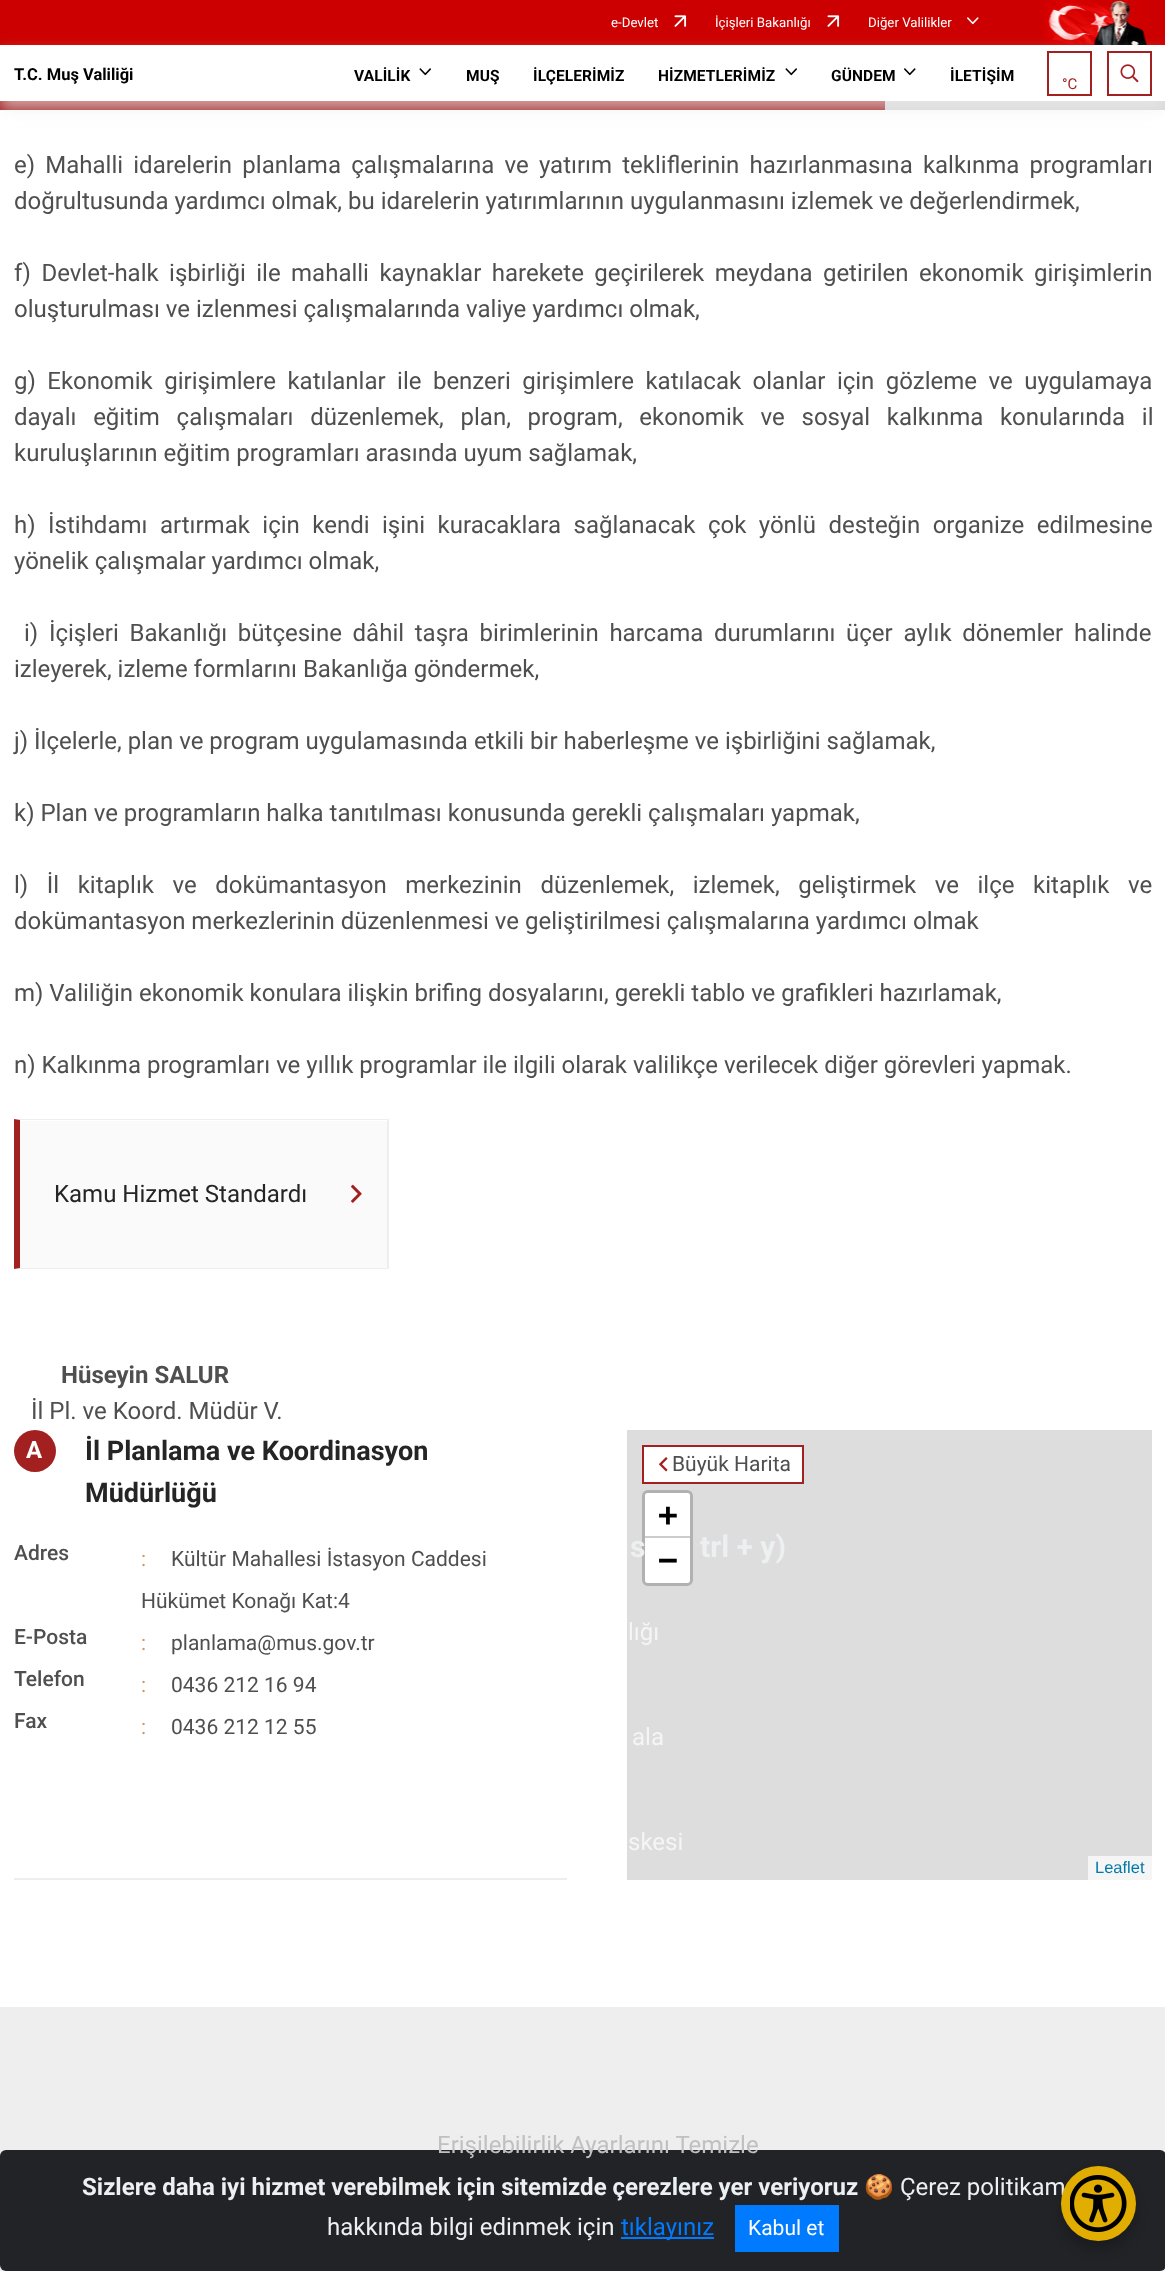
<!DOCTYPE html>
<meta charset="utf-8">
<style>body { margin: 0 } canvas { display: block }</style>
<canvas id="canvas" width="1165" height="2271"></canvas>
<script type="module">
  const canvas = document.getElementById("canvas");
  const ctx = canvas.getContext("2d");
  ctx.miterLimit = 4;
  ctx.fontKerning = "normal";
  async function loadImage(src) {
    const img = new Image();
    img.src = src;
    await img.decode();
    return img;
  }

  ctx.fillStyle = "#ffffff";
  ctx.fillRect(0, 0, 1165, 2271);
  ctx.fillStyle = "#cc0000";
  ctx.fillRect(0, 0, 1165, 45);
  ctx.font = "13.25px Roboto";
  ctx.fillStyle = "#ffffff";
  ctx.fillText("e-Devlet", 611, 27);
  ctx.drawImage(await loadImage("img1.png"), 674, 15, 13, 12);
  ctx.fillText("İçişleri Bakanlığı", 715, 27);
  ctx.drawImage(await loadImage("img1.png"), 827, 15, 13, 12);
  ctx.fillText("Diğer Valilikler", 868, 27);
  ctx.drawImage(await loadImage("img2.png"), 967, 17, 12, 8);
  ctx.drawImage(await loadImage("img3.png"), 1041, 0, 107, 45);
  ctx.fillStyle = "#d7d7d7";
  ctx.fillRect(885, 101, 280, 9);
  ctx.fillStyle = "#a22020";
  ctx.fillRect(0, 101, 885, 9);
  ctx.fillStyle = "rgba(238, 238, 238, 0.62)";
  ctx.filter = "blur(7.5px)";
  ctx.beginPath();
  ctx.rect(0, 54, 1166, 56);
  ctx.fill();
  ctx.filter = "none";
  ctx.fillStyle = "#ffffff";
  ctx.fillRect(0, 49, 1165, 52);
  ctx.font = "bold 16.5px Roboto";
  ctx.fillStyle = "#000000";
  ctx.fillText("T.C. Muş Valiliği", 14, 80);
  ctx.letterSpacing = "0.1px";
  ctx.font = "bold 15.5px Roboto";
  ctx.fillText("VALİLİK", 354, 81);
  ctx.drawImage(await loadImage("img4.png"), 419, 68, 12, 8);
  ctx.fillText("MUŞ", 466, 81);
  ctx.fillText("İLÇELERİMİZ", 533, 81);
  ctx.fillText("HİZMETLERİMİZ", 658, 81);
  ctx.drawImage(await loadImage("img4.png"), 785, 68, 12, 8);
  ctx.fillText("GÜNDEM", 831, 81);
  ctx.drawImage(await loadImage("img5.png"), 904, 68, 12, 8);
  ctx.fillText("İLETİŞİM", 950, 81);
  ctx.strokeStyle = "#a22020";
  ctx.lineWidth = 2;
  ctx.strokeRect(1048, 52, 43, 43);
  ctx.letterSpacing = "0px";
  ctx.font = "15px Roboto";
  ctx.fillStyle = "#a22020";
  ctx.fillText("°C", 1062, 89);
  ctx.strokeRect(1108, 52, 43, 43);
  ctx.drawImage(await loadImage("img6.png"), 1120, 64, 19, 19);
  ctx.wordSpacing = "4.25px";
  ctx.font = "24px Roboto";
  ctx.fillStyle = "#4f4f4f";
  ctx.fillText("e) Mahalli idarelerin planlama çalışmalarına ve yatırım tekliflerinin hazırlanmasına kalkınma programları", 14, 173);
  ctx.wordSpacing = "0px";
  ctx.fillText("doğrultusunda yardımcı olmak, bu idarelerin yatırımlarının uygulanmasını izlemek ve değerlendirmek,", 14, 209);
  ctx.wordSpacing = "4.5px";
  ctx.fillText("f) Devlet-halk işbirliği ile mahalli kaynaklar harekete geçirilerek meydana getirilen ekonomik girişimlerin", 14, 281);
  ctx.wordSpacing = "0px";
  ctx.fillText("oluşturulması ve izlenmesi çalışmalarında valiye yardımcı olmak,", 14, 317);
  ctx.wordSpacing = "5.5px";
  ctx.fillText("g) Ekonomik girişimlere katılanlar ile benzeri girişimlere katılacak olanlar için gözleme ve uygulamaya", 14, 389);
  ctx.wordSpacing = "10.75px";
  ctx.fillText("dayalı eğitim çalışmaları düzenlemek, plan, program, ekonomik ve sosyal kalkınma konularında il", 14, 425);
  ctx.wordSpacing = "0px";
  ctx.fillText("kuruluşlarının eğitim programları arasında uyum sağlamak,", 14, 461);
  ctx.wordSpacing = "6.5px";
  ctx.fillText("h) İstihdamı artırmak için kendi işini kuracaklara sağlanacak çok yönlü desteğin organize edilmesine", 14, 533);
  ctx.wordSpacing = "0px";
  ctx.fillText("yönelik çalışmalar yardımcı olmak,", 14, 569);
  ctx.wordSpacing = "4.75px";
  ctx.fillText("i) İçişleri Bakanlığı bütçesine dâhil taşra birimlerinin harcama durumlarını üçer aylık dönemler halinde", 24, 641);
  ctx.wordSpacing = "0px";
  ctx.fillText("izleyerek, izleme formlarını Bakanlığa göndermek,", 14, 677);
  ctx.fillText("j) İlçelerle, plan ve program uygulamasında etkili bir haberleşme ve işbirliğini sağlamak,", 14, 749);
  ctx.fillText("k) Plan ve programların halka tanıtılması konusunda gerekli çalışmaları yapmak,", 14, 821);
  ctx.wordSpacing = "12.6px";
  ctx.fillText("l) İl kitaplık ve dokümantasyon merkezinin düzenlemek, izlemek, geliştirmek ve ilçe kitaplık ve", 14, 893);
  ctx.wordSpacing = "0px";
  ctx.fillText("dokümantasyon merkezlerinin düzenlenmesi ve geliştirilmesi çalışmalarına yardımcı olmak", 14, 929);
  ctx.fillText("m) Valiliğin ekonomik konulara ilişkin brifing dosyalarını, gerekli tablo ve grafikleri hazırlamak,", 14, 1001);
  ctx.fillText("n) Kalkınma programları ve yıllık programlar ile ilgili olarak valilikçe verilecek diğer görevleri yapmak.", 14, 1073);
  ctx.fillStyle = "#fafafa";
  ctx.fillRect(20, 1121, 367, 147);
  ctx.fillStyle = "#eeeeee";
  ctx.beginPath();
  ctx.moveTo(14, 1119);
  ctx.lineTo(388, 1119);
  ctx.lineTo(387, 1120);
  ctx.lineTo(20, 1120);
  ctx.closePath();
  ctx.fill();
  ctx.fillRect(387, 1119, 2, 150);
  ctx.beginPath();
  ctx.moveTo(388, 1269);
  ctx.lineTo(14, 1269);
  ctx.lineTo(20, 1268);
  ctx.lineTo(387, 1268);
  ctx.closePath();
  ctx.fill();
  ctx.fillStyle = "#a22020";
  ctx.beginPath();
  ctx.moveTo(14, 1269);
  ctx.lineTo(14, 1119);
  ctx.lineTo(20, 1120);
  ctx.lineTo(20, 1268);
  ctx.closePath();
  ctx.fill();
  ctx.fillStyle = "#252525";
  ctx.fillText("Kamu Hizmet Standardı", 54, 1202);
  ctx.drawImage(await loadImage("img7.png"), 351, 1184, 11, 19);
  ctx.font = "bold 24px Roboto";
  ctx.fillStyle = "#4f4f4f";
  ctx.fillText("Hüseyin SALUR", 61, 1383);
  ctx.font = "24px Roboto";
  ctx.fillText("İl Pl. ve Koord. Müdür V.", 31, 1419);
  ctx.fillStyle = "#eeeeee";
  ctx.fillRect(14, 1878, 553, 2);
  ctx.fillStyle = "#a22020";
  ctx.beginPath();
  ctx.arc(35, 1451, 21, 0, Math.PI * 2);
  ctx.fill();
  ctx.font = "bold 24px Roboto";
  ctx.fillStyle = "#ffffff";
  ctx.fillText("A", 26, 1458);
  ctx.font = "bold 27px Roboto";
  ctx.fillStyle = "#252525";
  ctx.fillText("İl Planlama ve Koordinasyon", 85, 1460);
  ctx.fillText("Müdürlüğü", 85, 1502);
  ctx.font = "500 21px Roboto";
  ctx.fillStyle = "#4f4f4f";
  ctx.fillText("Adres", 14, 1560);
  ctx.font = "21px Roboto";
  ctx.fillStyle = "#d2935b";
  ctx.fillText(":", 141, 1566);
  ctx.fillStyle = "#4f4f4f";
  ctx.fillText("Kültür Mahallesi İstasyon Caddesi", 171, 1566);
  ctx.fillText("Hükümet Konağı Kat:4", 141, 1608);
  ctx.font = "500 21px Roboto";
  ctx.fillText("E-Posta", 14, 1644);
  ctx.font = "21px Roboto";
  ctx.fillStyle = "#d2935b";
  ctx.fillText(":", 141, 1650);
  ctx.fillStyle = "#4f4f4f";
  ctx.fillText("planlama@mus.gov.tr", 171, 1650);
  ctx.font = "500 21px Roboto";
  ctx.fillText("Telefon", 14, 1686);
  ctx.font = "21px Roboto";
  ctx.fillStyle = "#d2935b";
  ctx.fillText(":", 141, 1692);
  ctx.fillStyle = "#4f4f4f";
  ctx.fillText("0436 212 16 94", 171, 1692);
  ctx.font = "500 21px Roboto";
  ctx.fillText("Fax", 14, 1728);
  ctx.font = "21px Roboto";
  ctx.fillStyle = "#d2935b";
  ctx.fillText(":", 141, 1734);
  ctx.fillStyle = "#4f4f4f";
  ctx.fillText("0436 212 12 55", 171, 1734);
  ctx.fillStyle = "#dddddd";
  ctx.fillRect(627, 1430, 525, 450);
  ctx.fillStyle = "#ffffff";
  ctx.beginPath();
  ctx.rect(643, 1446, 160, 37);
  ctx.fill();
  ctx.stroke();
  ctx.drawImage(await loadImage("img8.png"), 659, 1457, 9, 15);
  ctx.fillStyle = "#4f4f4f";
  ctx.fillText("Büyük Harita", 672, 1471);
  ctx.beginPath();
  ctx.roundRect(643.5, 1491.5, 48, 93, 4.5);
  ctx.strokeStyle = "#b1b1b1";
  ctx.lineWidth = 3;
  ctx.stroke();
  ctx.fillStyle = "#ffffff";
  ctx.beginPath();
  ctx.roundRect(645, 1493, 45, 45, [3, 3, 0, 0]);
  ctx.fill();
  ctx.fillStyle = "#cccccc";
  ctx.fillRect(645, 1536, 45, 2);
  ctx.font = "bold 33px DejaVu Sans Mono";
  ctx.fillStyle = "#000000";
  ctx.fillText("+", 658, 1526);
  ctx.fillStyle = "#ffffff";
  ctx.beginPath();
  ctx.roundRect(645, 1538, 45, 45, [0, 0, 3, 3]);
  ctx.fill();
  ctx.fillStyle = "#000000";
  ctx.fillText("−", 658, 1571);
  ctx.fillStyle = "#f5f5f5";
  ctx.fillRect(1088, 1856, 64, 24);
  ctx.font = "16.5px Liberation Sans";
  ctx.fillStyle = "#0078a8";
  ctx.fillText("Leaflet", 1095, 1873);
  ctx.fillStyle = "#eeeeee";
  ctx.fillRect(0, 2007, 1165, 264);
  ctx.font = "bold 30px Roboto";
  ctx.fillStyle = "#ecf0f1";
  ctx.fillText("s", 630, 1557);
  ctx.fillText("trl + y)", 700, 1557);
  ctx.font = "24px Roboto";
  ctx.fillStyle = "#f5f5f5";
  ctx.fillText("lığı", 628, 1640);
  ctx.fillText("ala", 632, 1745);
  ctx.fillText("skesi", 628, 1850);
  ctx.fillStyle = "#212327";
  ctx.beginPath();
  ctx.roundRect(0, 2150, 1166, 121, 6);
  ctx.fill();
  ctx.fillStyle = "#c0c0c1";
  ctx.fillText("Erişilebilirlik Ayarlarını Temizle", 437, 2153);
  ctx.fillStyle = "rgba(0, 0, 0, 0.2)";
  ctx.filter = "blur(6px)";
  ctx.beginPath();
  ctx.roundRect(1061, 2175, 75, 75, 37.5);
  ctx.fill();
  ctx.filter = "none";
  ctx.fillStyle = "#ecf0f1";
  ctx.fillText("Çerez politikam", 900, 2195);
  ctx.fillStyle = "#e1ad01";
  ctx.beginPath();
  ctx.arc(1098.5, 2203.5, 37.5, 0, Math.PI * 2);
  ctx.fill();
  ctx.drawImage(await loadImage("img9.png"), 1070, 2175, 57, 57);
  ctx.font = "bold 24px Roboto";
  ctx.fillStyle = "#ecf0f1";
  ctx.fillText("Sizlere daha iyi hizmet verebilmek için sitemizde çerezlere yer veriyoruz", 82, 2195);
  ctx.font = "24px Noto Color Emoji";
  ctx.fillText("🍪", 864, 2195);
  ctx.font = "24px Roboto";
  ctx.fillText("hakkında bilgi edinmek için", 327, 2235);
  ctx.fillStyle = "#007bff";
  ctx.fillRect(621, 2237, 93, 2);
  ctx.fillText("tıklayınız", 621, 2235);
  ctx.fillRect(735, 2205, 104, 47);
  ctx.font = "21px Roboto";
  ctx.fillStyle = "#ffffff";
  ctx.fillText("Kabul et", 748, 2235);
</script>
